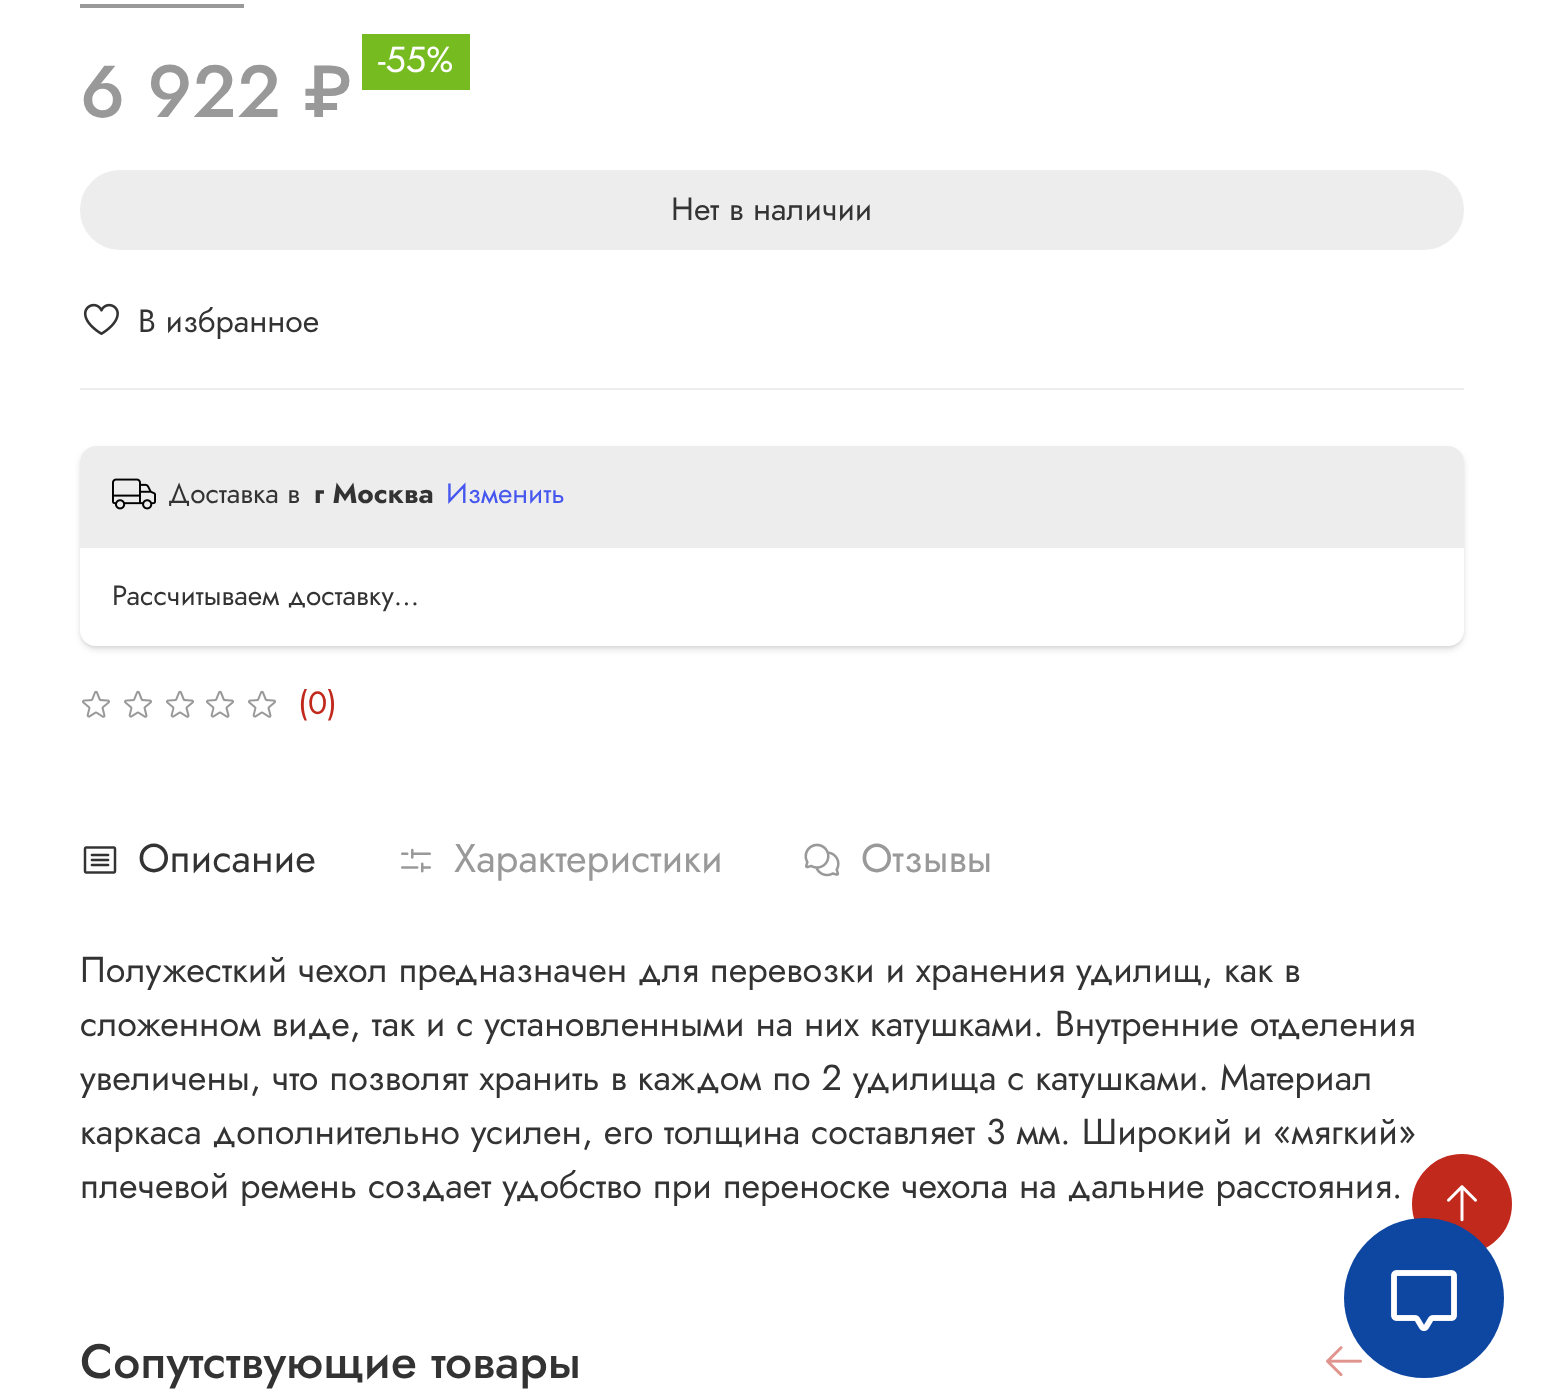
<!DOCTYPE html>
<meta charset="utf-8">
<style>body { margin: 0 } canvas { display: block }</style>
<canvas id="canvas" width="1543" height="1397"></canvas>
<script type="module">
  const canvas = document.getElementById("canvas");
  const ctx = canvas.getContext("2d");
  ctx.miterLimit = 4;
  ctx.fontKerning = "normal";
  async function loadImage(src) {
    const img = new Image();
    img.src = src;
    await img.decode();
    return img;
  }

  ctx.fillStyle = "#ffffff";
  ctx.fillRect(0, 0, 1543, 1397);
  ctx.fillStyle = "#999999";
  ctx.fillRect(80, 4, 164, 4);
  ctx.fillStyle = "#76bc21";
  ctx.fillRect(362, 34, 108, 56);
  ctx.font = "36px Jost";
  ctx.fillStyle = "#ffffff";
  ctx.fillText("-55%", 378, 72);
  ctx.font = "500 73.5px Jost";
  ctx.fillStyle = "#999999";
  ctx.fillText("6 922 ₽", 80, 117);
  ctx.fillStyle = "#ededed";
  ctx.beginPath();
  ctx.roundRect(81, 171, 1382, 78, 39);
  ctx.fill();
  ctx.strokeStyle = "#ededed";
  ctx.lineWidth = 2;
  ctx.stroke();
  ctx.font = "32px Jost";
  ctx.fillStyle = "#333333";
  ctx.fillText("Нет в наличии", 671, 220);
  ctx.drawImage(await loadImage("img1.png"), 83, 303, 36, 32);
  ctx.fillText("В избранное", 138, 332);
  ctx.fillStyle = "#ededed";
  ctx.fillRect(80, 388, 1384, 2);
  ctx.save();
  ctx.beginPath();
  ctx.moveTo(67, 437);
  ctx.lineTo(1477, 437);
  ctx.lineTo(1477, 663);
  ctx.lineTo(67, 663);
  ctx.closePath();
  ctx.moveTo(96, 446);
  ctx.lineTo(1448, 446);
  ctx.bezierCurveTo(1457, 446, 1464, 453, 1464, 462);
  ctx.lineTo(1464, 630);
  ctx.bezierCurveTo(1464, 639, 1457, 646, 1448, 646);
  ctx.lineTo(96, 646);
  ctx.bezierCurveTo(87, 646, 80, 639, 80, 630);
  ctx.lineTo(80, 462);
  ctx.bezierCurveTo(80, 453, 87, 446, 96, 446);
  ctx.closePath();
  ctx.clip("evenodd");
  ctx.fillStyle = "rgba(0, 0, 0, 0.05)";
  ctx.filter = "blur(4px)";
  ctx.beginPath();
  ctx.roundRect(80, 450, 1384, 200, 16);
  ctx.fill();
  ctx.filter = "none";
  ctx.restore();
  ctx.save();
  ctx.beginPath();
  ctx.moveTo(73, 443);
  ctx.lineTo(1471, 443);
  ctx.lineTo(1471, 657);
  ctx.lineTo(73, 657);
  ctx.closePath();
  ctx.moveTo(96, 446);
  ctx.lineTo(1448, 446);
  ctx.bezierCurveTo(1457, 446, 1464, 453, 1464, 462);
  ctx.lineTo(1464, 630);
  ctx.bezierCurveTo(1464, 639, 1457, 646, 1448, 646);
  ctx.lineTo(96, 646);
  ctx.bezierCurveTo(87, 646, 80, 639, 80, 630);
  ctx.lineTo(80, 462);
  ctx.bezierCurveTo(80, 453, 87, 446, 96, 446);
  ctx.closePath();
  ctx.clip("evenodd");
  ctx.fillStyle = "rgba(0, 0, 0, 0.05)";
  ctx.filter = "blur(2px)";
  ctx.beginPath();
  ctx.roundRect(80, 450, 1384, 200, 16);
  ctx.fill();
  ctx.filter = "none";
  ctx.restore();
  ctx.save();
  ctx.beginPath();
  ctx.moveTo(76, 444);
  ctx.lineTo(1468, 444);
  ctx.lineTo(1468, 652);
  ctx.lineTo(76, 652);
  ctx.closePath();
  ctx.moveTo(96, 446);
  ctx.lineTo(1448, 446);
  ctx.bezierCurveTo(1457, 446, 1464, 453, 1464, 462);
  ctx.lineTo(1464, 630);
  ctx.bezierCurveTo(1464, 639, 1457, 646, 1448, 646);
  ctx.lineTo(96, 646);
  ctx.bezierCurveTo(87, 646, 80, 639, 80, 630);
  ctx.lineTo(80, 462);
  ctx.bezierCurveTo(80, 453, 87, 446, 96, 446);
  ctx.closePath();
  ctx.clip("evenodd");
  ctx.fillStyle = "rgba(0, 0, 0, 0.05)";
  ctx.filter = "blur(1px)";
  ctx.beginPath();
  ctx.roundRect(80, 448, 1384, 200, 16);
  ctx.fill();
  ctx.filter = "none";
  ctx.restore();
  ctx.beginPath();
  ctx.roundRect(80, 446, 1384, 102, [16, 16, 0, 0]);
  ctx.fill();
  ctx.drawImage(await loadImage("img2.png"), 112, 478, 44, 32);
  ctx.font = "28px Jost";
  ctx.fillStyle = "#333333";
  ctx.fillText("Доставка в", 168, 503);
  ctx.font = "bold 28px Jost";
  ctx.fillText("г Москва", 314, 503);
  ctx.font = "28px Jost";
  ctx.fillStyle = "#4657ef";
  ctx.fillText("Изменить", 446, 503);
  ctx.fillStyle = "#333333";
  ctx.fillText("Рассчитываем доставку...", 112, 605);
  ctx.drawImage(await loadImage("img3.png"), 82, 690, 28, 28);
  ctx.drawImage(await loadImage("img3.png"), 124, 690, 28, 28);
  ctx.drawImage(await loadImage("img3.png"), 166, 690, 28, 28);
  ctx.drawImage(await loadImage("img3.png"), 206, 690, 28, 28);
  ctx.drawImage(await loadImage("img3.png"), 248, 690, 28, 28);
  ctx.font = "32px Jost";
  ctx.fillStyle = "#c2291d";
  ctx.fillText("(0)", 298, 714);
  ctx.drawImage(await loadImage("img4.png"), 83, 846, 34, 28);
  ctx.font = "40px Jost";
  ctx.fillStyle = "#333333";
  ctx.fillText("Описание", 138, 872);
  ctx.drawImage(await loadImage("img5.png"), 401, 848, 30, 25);
  ctx.fillStyle = "#999999";
  ctx.fillText("Характеристики", 454, 872);
  ctx.drawImage(await loadImage("img6.png"), 804, 843, 36, 34);
  ctx.fillText("Отзывы", 861, 872);
  ctx.font = "36px Jost";
  ctx.fillStyle = "#333333";
  ctx.fillText("Полужесткий чехол предназначен для перевозки и хранения удилищ, как в", 80, 982);
  ctx.fillText("сложенном виде, так и с установленными на них катушками. Внутренние отделения", 80, 1036);
  ctx.fillText("увеличены, что позволят хранить в каждом по 2 удилища с катушками. Материал", 80, 1090);
  ctx.fillText("каркаса дополнительно усилен, его толщина составляет 3 мм. Широкий и «мягкий»", 80, 1144);
  ctx.fillText("плечевой ремень создает удобство при переноске чехола на дальние расстояния.", 80, 1198);
  ctx.font = "500 48px Jost";
  ctx.fillText("Сопутствующие товары", 80, 1378);
  ctx.drawImage(await loadImage("img7.png"), 1326, 1346, 36, 31);
  ctx.fillStyle = "#c2291d";
  ctx.beginPath();
  ctx.arc(1462, 1204, 49, 0, Math.PI * 2);
  ctx.fill();
  ctx.strokeStyle = "#c2291d";
  ctx.stroke();
  ctx.drawImage(await loadImage("img8.png"), 1447, 1185, 30, 37);
  ctx.fillStyle = "#0d47a1";
  ctx.beginPath();
  ctx.arc(1424, 1298, 80, 0, Math.PI * 2);
  ctx.fill();
  ctx.drawImage(await loadImage("img9.png"), 1391, 1270, 66, 61);
</script>
